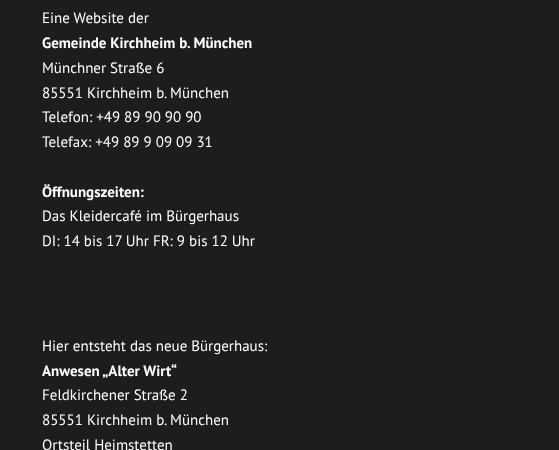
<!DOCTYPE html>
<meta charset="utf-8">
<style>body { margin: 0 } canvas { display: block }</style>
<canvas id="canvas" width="559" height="450"></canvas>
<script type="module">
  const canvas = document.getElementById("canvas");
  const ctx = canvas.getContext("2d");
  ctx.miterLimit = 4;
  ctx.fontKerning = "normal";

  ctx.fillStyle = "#1d1d1b";
  ctx.fillRect(0, 0, 559, 450);
  ctx.font = "15px PT Sans";
  ctx.fillStyle = "#ffffff";
  ctx.fillText("Eine Website der", 42, 23);
  ctx.font = "bold 15px PT Sans";
  ctx.fillText("Gemeinde Kirchheim b. München", 42, 48);
  ctx.font = "15px PT Sans";
  ctx.fillText("Münchner Straße 6", 42, 73);
  ctx.fillText("85551 Kirchheim b. München", 42, 98);
  ctx.fillText("Telefon: +49 89 90 90 90", 42, 122);
  ctx.fillText("Telefax: +49 89 9 09 09 31", 42, 147);
  ctx.font = "bold 15px PT Sans";
  ctx.fillText("Öffnungszeiten:", 42, 197);
  ctx.font = "15px PT Sans";
  ctx.fillText("Das Kleidercafé im Bürgerhaus", 42, 221);
  ctx.fillText("DI: 14 bis 17 Uhr FR: 9 bis 12 Uhr", 42, 246);
  ctx.fillText("Hier entsteht das neue Bürgerhaus:", 42, 351);
  ctx.font = "bold 15px PT Sans";
  ctx.fillText("Anwesen „Alter Wirt“", 42, 376);
  ctx.font = "15px PT Sans";
  ctx.fillText("Feldkirchener Straße 2", 42, 400);
  ctx.fillText("85551 Kirchheim b. München", 42, 425);
  ctx.fillText("Ortsteil Heimstetten", 42, 450);
</script>
